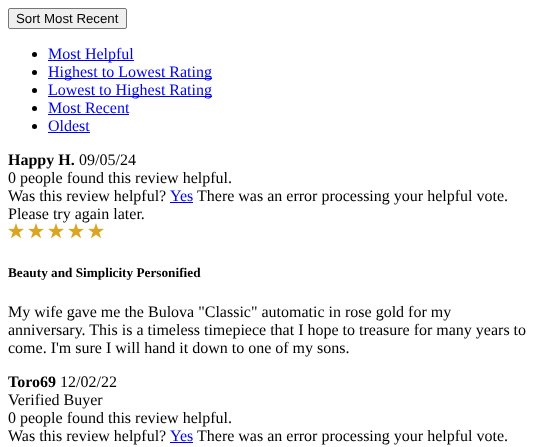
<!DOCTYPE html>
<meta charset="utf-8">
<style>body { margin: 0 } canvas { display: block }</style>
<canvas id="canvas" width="539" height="447"></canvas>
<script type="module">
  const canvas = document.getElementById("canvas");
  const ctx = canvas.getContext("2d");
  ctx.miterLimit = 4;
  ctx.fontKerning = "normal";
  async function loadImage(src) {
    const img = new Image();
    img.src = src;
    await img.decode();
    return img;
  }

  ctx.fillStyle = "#ffffff";
  ctx.fillRect(0, 0, 539, 447);
  ctx.fillStyle = "#efefef";
  ctx.beginPath();
  ctx.roundRect(8.5, 8.5, 118, 20, 1.5);
  ctx.fill();
  ctx.strokeStyle = "#767676";
  ctx.stroke();
  ctx.font = "13.25px Liberation Sans";
  ctx.fillStyle = "#000000";
  ctx.fillText("Sort Most Recent", 16, 23);
  ctx.beginPath();
  ctx.arc(34.5, 54.5, 2.5, 0, Math.PI * 2);
  ctx.fill();
  ctx.fillStyle = "#0000ee";
  ctx.fillRect(48, 60, 86, 1);
  ctx.font = "16px Liberation Serif";
  ctx.fillText("Most Helpful", 48, 59);
  ctx.fillStyle = "#000000";
  ctx.beginPath();
  ctx.arc(34.5, 72.5, 2.5, 0, Math.PI * 2);
  ctx.fill();
  ctx.fillStyle = "#0000ee";
  ctx.fillRect(48, 78, 164, 1);
  ctx.fillText("Highest to Lowest Rating", 48, 77);
  ctx.fillStyle = "#000000";
  ctx.beginPath();
  ctx.arc(34.5, 90.5, 2.5, 0, Math.PI * 2);
  ctx.fill();
  ctx.fillStyle = "#0000ee";
  ctx.fillRect(48, 96, 164, 1);
  ctx.fillText("Lowest to Highest Rating", 48, 95);
  ctx.fillStyle = "#000000";
  ctx.beginPath();
  ctx.arc(34.5, 108.5, 2.5, 0, Math.PI * 2);
  ctx.fill();
  ctx.fillStyle = "#0000ee";
  ctx.fillText("Most Recent", 48, 113);
  ctx.fillRect(48, 114, 81, 1);
  ctx.fillStyle = "#000000";
  ctx.beginPath();
  ctx.arc(34.5, 126.5, 2.5, 0, Math.PI * 2);
  ctx.fill();
  ctx.fillStyle = "#0000ee";
  ctx.fillText("Oldest", 48, 131);
  ctx.fillRect(48, 132, 42, 1);
  ctx.font = "bold 16px Liberation Serif";
  ctx.fillStyle = "#000000";
  ctx.fillText("Happy H.", 8, 165);
  ctx.font = "16px Liberation Serif";
  ctx.fillText("09/05/24", 79, 165);
  ctx.fillText("0 people found this review helpful.", 8, 183);
  ctx.fillText("Was this review helpful?", 8, 201);
  ctx.fillStyle = "#0000ee";
  ctx.fillText("Yes", 170, 201);
  ctx.fillRect(170, 202, 23, 1);
  ctx.fillStyle = "#000000";
  ctx.fillText("There was an error processing your helpful vote.", 197, 201);
  ctx.fillText("Please try again later.", 8, 219);
  ctx.drawImage(await loadImage("img1.png"), 8, 223, 16, 16);
  ctx.drawImage(await loadImage("img1.png"), 28, 223, 16, 16);
  ctx.drawImage(await loadImage("img1.png"), 48, 223, 16, 16);
  ctx.drawImage(await loadImage("img1.png"), 68, 223, 16, 16);
  ctx.drawImage(await loadImage("img1.png"), 88, 223, 16, 16);
  ctx.font = "bold 13.25px Liberation Serif";
  ctx.fillText("Beauty and Simplicity Personified", 8, 277);
  ctx.font = "16px Liberation Serif";
  ctx.fillText("My wife gave me the Bulova \"Classic\" automatic in rose gold for my", 8, 317);
  ctx.fillText("anniversary. This is a timeless timepiece that I hope to treasure for many years to", 8, 335);
  ctx.fillText("come. I'm sure I will hand it down to one of my sons.", 8, 353);
  ctx.font = "bold 16px Liberation Serif";
  ctx.fillText("Toro69", 8, 387);
  ctx.font = "16px Liberation Serif";
  ctx.fillText("12/02/22", 60, 387);
  ctx.fillText("Verified Buyer", 8, 405);
  ctx.fillText("0 people found this review helpful.", 8, 423);
  ctx.fillText("Was this review helpful?", 8, 441);
  ctx.fillStyle = "#0000ee";
  ctx.fillText("Yes", 170, 441);
  ctx.fillRect(170, 442, 23, 1);
  ctx.fillStyle = "#000000";
  ctx.fillText("There was an error processing your helpful vote.", 197, 441);
</script>
